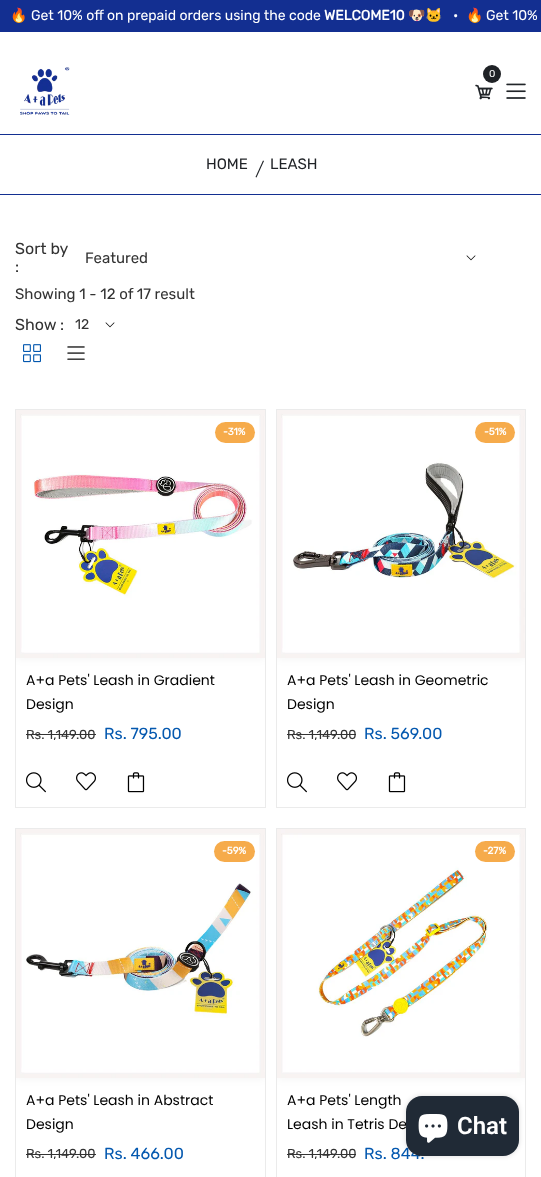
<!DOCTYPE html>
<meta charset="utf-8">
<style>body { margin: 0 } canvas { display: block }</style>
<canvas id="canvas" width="541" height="1177"></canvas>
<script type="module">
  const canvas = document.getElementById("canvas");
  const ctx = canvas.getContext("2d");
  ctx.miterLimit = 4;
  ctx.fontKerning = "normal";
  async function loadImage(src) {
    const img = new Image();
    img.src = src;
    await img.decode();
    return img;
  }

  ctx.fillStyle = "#ffffff";
  ctx.fillRect(0, 0, 541, 1177);
  ctx.fillStyle = "#132f91";
  ctx.fillRect(0, 0, 541, 32);
  ctx.font = "14px Noto Color Emoji";
  ctx.fillStyle = "#ffffff";
  ctx.fillText("🔥", 10, 20);
  ctx.font = "14px Rubik";
  ctx.fillText("Get 10% off on prepaid orders using the code", 31, 20);
  ctx.font = "bold 14px Rubik";
  ctx.fillText("WELCOME10", 324, 20);
  ctx.font = "14px Noto Color Emoji";
  ctx.fillText("🐶🐱", 408, 20);
  ctx.font = "14px Rubik";
  ctx.fillText("•", 453, 20);
  ctx.font = "14px Noto Color Emoji";
  ctx.fillText("🔥", 466, 20);
  ctx.font = "14px Rubik";
  ctx.fillText("Get 10%", 486, 20);
  ctx.fillStyle = "#132f91";
  ctx.fillRect(0, 134, 541, 1);
  ctx.drawImage(await loadImage("img1.png"), 20, 67, 50, 48);
  ctx.fillStyle = "#1f2226";
  ctx.beginPath();
  ctx.arc(492, 74, 9, 0, Math.PI * 2);
  ctx.fill();
  ctx.font = "10px Rubik";
  ctx.fillStyle = "#ffffff";
  ctx.fillText("0", 489, 77);
  ctx.drawImage(await loadImage("img2.png"), 475, 84, 18, 16);
  ctx.drawImage(await loadImage("img3.png"), 506, 83, 20, 16);
  ctx.fillStyle = "#132f91";
  ctx.fillRect(0, 194, 541, 1);
  ctx.font = "15px Rubik";
  ctx.fillStyle = "#1f2226";
  ctx.fillText("HOME", 206, 169);
  ctx.beginPath();
  ctx.moveTo(264, 161);
  ctx.lineTo(256.5, 177.5);
  ctx.lineTo(255.5, 177);
  ctx.lineTo(263, 160.5);
  ctx.closePath();
  ctx.fill();
  ctx.fillText("LEASH", 270, 169);
  ctx.font = "16px Rubik";
  ctx.fillStyle = "#333333";
  ctx.fillText("Sort by", 15, 254);
  ctx.fillText(":", 15, 272);
  ctx.drawImage(await loadImage("img4.png"), 466, 255, 10, 6);
  ctx.font = "15px Rubik";
  ctx.fillText("Featured", 85, 263);
  ctx.fillText("Showing 1 - 12 of 17 result", 15, 299);
  ctx.font = "16px Rubik";
  ctx.fillText("Show :", 15, 330);
  ctx.drawImage(await loadImage("img4.png"), 105, 322, 10, 6);
  ctx.font = "14px Rubik";
  ctx.fillText("12", 75, 329);
  ctx.drawImage(await loadImage("img5.png"), 23, 344, 18, 19);
  ctx.drawImage(await loadImage("img6.png"), 67, 346, 18, 14);
  ctx.strokeStyle = "#ebebeb";
  ctx.strokeRect(15.5, 409.5, 250, 398);
  ctx.save();
  ctx.beginPath();
  ctx.rect(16, 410, 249, 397);
  ctx.clip();
  ctx.fillStyle = "rgba(0, 0, 0, 0.05)";
  ctx.filter = "blur(5px)";
  ctx.beginPath();
  ctx.rect(16, 410, 249, 248);
  ctx.fill();
  ctx.filter = "none";
  ctx.restore();
  ctx.drawImage(await loadImage("img7.png"), 16, 410, 249, 248);
  ctx.fillStyle = "#f6ab4b";
  ctx.beginPath();
  ctx.roundRect(215, 422, 40, 21, 10.5);
  ctx.fill();
  ctx.font = "bold 10px Rubik";
  ctx.fillStyle = "#ffffff";
  ctx.fillText("-31%", 223, 435);
  ctx.font = "14px Poppins";
  ctx.fillStyle = "#000000";
  ctx.fillText("A+a Pets' Leash in Gradient", 26, 685);
  ctx.fillText("Design", 26, 709);
  ctx.font = "13px Rubik";
  ctx.fillStyle = "#333333";
  ctx.fillText("Rs. 1,149.00", 26, 739);
  ctx.fillRect(26, 734, 70, 1);
  ctx.font = "16px Rubik";
  ctx.fillStyle = "#0458af";
  ctx.fillText("Rs. 795.00", 104, 739);
  ctx.drawImage(await loadImage("img8.png"), 26, 772, 20, 21);
  ctx.drawImage(await loadImage("img9.png"), 76, 772, 20, 19);
  ctx.drawImage(await loadImage("img10.png"), 127, 772, 18, 21);
  ctx.strokeRect(276.5, 409.5, 249, 398);
  ctx.save();
  ctx.beginPath();
  ctx.rect(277, 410, 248, 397);
  ctx.clip();
  ctx.fillStyle = "rgba(0, 0, 0, 0.05)";
  ctx.filter = "blur(5px)";
  ctx.beginPath();
  ctx.rect(277, 410, 248, 248);
  ctx.fill();
  ctx.filter = "none";
  ctx.restore();
  ctx.drawImage(await loadImage("img11.png"), 277, 410, 248, 248);
  ctx.fillStyle = "#f6ab4b";
  ctx.beginPath();
  ctx.roundRect(475, 422, 40, 21, 10.5);
  ctx.fill();
  ctx.font = "bold 10px Rubik";
  ctx.fillStyle = "#ffffff";
  ctx.fillText("-51%", 484, 435);
  ctx.font = "14px Poppins";
  ctx.fillStyle = "#000000";
  ctx.fillText("A+a Pets' Leash in Geometric", 287, 685);
  ctx.fillText("Design", 287, 709);
  ctx.font = "13px Rubik";
  ctx.fillStyle = "#333333";
  ctx.fillText("Rs. 1,149.00", 287, 739);
  ctx.fillRect(287, 734, 69, 1);
  ctx.font = "16px Rubik";
  ctx.fillStyle = "#0458af";
  ctx.fillText("Rs. 569.00", 364, 739);
  ctx.drawImage(await loadImage("img8.png"), 287, 772, 20, 21);
  ctx.drawImage(await loadImage("img9.png"), 337, 772, 20, 19);
  ctx.drawImage(await loadImage("img10.png"), 388, 772, 18, 21);
  ctx.strokeRect(15.5, 828.5, 250, 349);
  ctx.save();
  ctx.beginPath();
  ctx.rect(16, 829, 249, 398);
  ctx.clip();
  ctx.fillStyle = "rgba(0, 0, 0, 0.05)";
  ctx.filter = "blur(5px)";
  ctx.beginPath();
  ctx.rect(16, 829, 249, 249);
  ctx.fill();
  ctx.filter = "none";
  ctx.restore();
  ctx.drawImage(await loadImage("img12.png"), 16, 829, 249, 249);
  ctx.fillStyle = "#f6ab4b";
  ctx.beginPath();
  ctx.roundRect(214, 841, 41, 21, 10.5);
  ctx.fill();
  ctx.font = "bold 10px Rubik";
  ctx.fillStyle = "#ffffff";
  ctx.fillText("-59%", 222, 854);
  ctx.font = "14px Poppins";
  ctx.fillStyle = "#000000";
  ctx.fillText("A+a Pets' Leash in Abstract", 26, 1105);
  ctx.fillText("Design", 26, 1129);
  ctx.font = "13px Rubik";
  ctx.fillStyle = "#333333";
  ctx.fillText("Rs. 1,149.00", 26, 1158);
  ctx.fillRect(26, 1154, 70, 1);
  ctx.font = "16px Rubik";
  ctx.fillStyle = "#0458af";
  ctx.fillText("Rs. 466.00", 104, 1159);
  ctx.strokeRect(276.5, 828.5, 249, 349);
  ctx.save();
  ctx.beginPath();
  ctx.rect(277, 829, 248, 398);
  ctx.clip();
  ctx.fillStyle = "rgba(0, 0, 0, 0.05)";
  ctx.filter = "blur(5px)";
  ctx.beginPath();
  ctx.rect(277, 829, 248, 249);
  ctx.fill();
  ctx.filter = "none";
  ctx.restore();
  ctx.drawImage(await loadImage("img13.png"), 277, 829, 248, 249);
  ctx.fillStyle = "#f6ab4b";
  ctx.beginPath();
  ctx.roundRect(475, 841, 40, 21, 10.5);
  ctx.fill();
  ctx.font = "bold 10px Rubik";
  ctx.fillStyle = "#ffffff";
  ctx.fillText("-27%", 483, 854);
  ctx.font = "14px Poppins";
  ctx.fillStyle = "#000000";
  ctx.fillText("A+a Pets' Length", 287, 1105);
  ctx.fillText("Leash in Tetris De", 287, 1129);
  ctx.font = "13px Rubik";
  ctx.fillStyle = "#333333";
  ctx.fillText("Rs. 1,149.00", 287, 1158);
  ctx.fillRect(287, 1154, 69, 1);
  ctx.font = "16px Rubik";
  ctx.fillStyle = "#0458af";
  ctx.fillText("Rs. 844.", 364, 1159);
  ctx.fillStyle = "rgba(0, 0, 0, 0.15)";
  ctx.filter = "blur(2.5px)";
  ctx.beginPath();
  ctx.roundRect(406, 1096, 113, 60, 16);
  ctx.fill();
  ctx.filter = "none";
  ctx.fillStyle = "#202a36";
  ctx.beginPath();
  ctx.roundRect(406, 1096, 113, 60, 16);
  ctx.fill();
  ctx.drawImage(await loadImage("img14.png"), 418, 1114, 30, 29);
  ctx.font = "600 24px Roboto";
  ctx.fillStyle = "#ffffff";
  ctx.fillText("Chat", 457, 1134);
</script>
